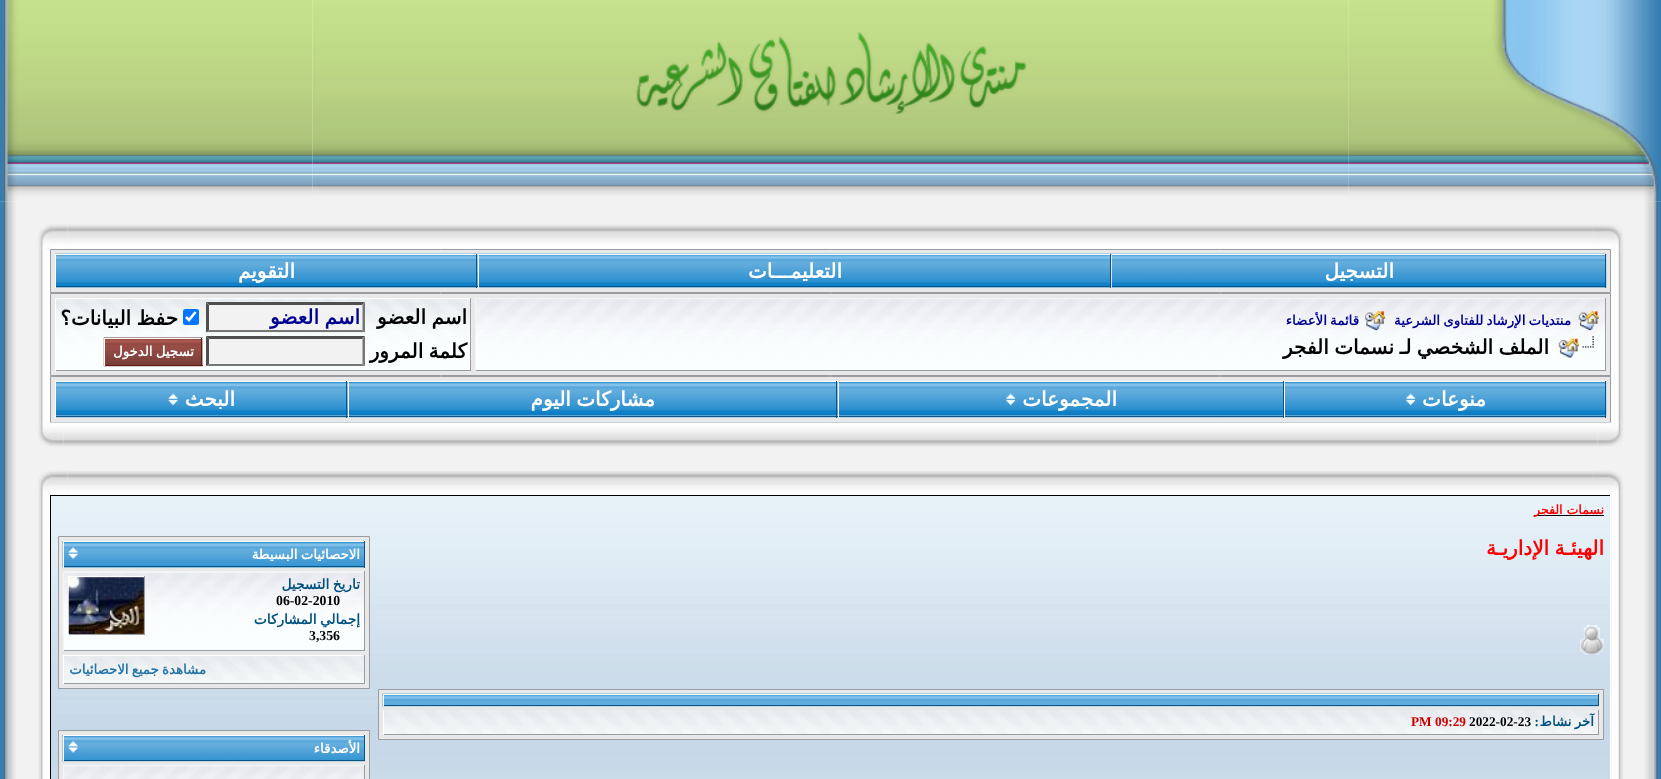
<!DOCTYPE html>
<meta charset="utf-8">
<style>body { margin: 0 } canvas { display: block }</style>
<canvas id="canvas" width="1661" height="779"></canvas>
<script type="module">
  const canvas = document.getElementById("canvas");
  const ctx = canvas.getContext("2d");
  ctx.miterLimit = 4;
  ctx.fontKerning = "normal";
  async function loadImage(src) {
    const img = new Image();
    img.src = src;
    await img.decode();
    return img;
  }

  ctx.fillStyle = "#f2f2f2";
  ctx.fillRect(0, 0, 1661, 779);
  ctx.drawImage(await loadImage("img2.png"), 312, 0, 1037, 196);
  ctx.drawImage(await loadImage("img5.png"), 1644, 201, 17, 578);
  ctx.drawImage(await loadImage("img1.png"), 1348, 0, 313, 202);
  ctx.drawImage(await loadImage("img3.png"), 636, 32, 391, 82);
  ctx.drawImage(await loadImage("img6.png"), 0, 201, 16, 578);
  ctx.drawImage(await loadImage("img4.png"), 0, 0, 313, 202);
  ctx.drawImage(await loadImage("img8.png"), 67, 224, 1527, 25);
  ctx.drawImage(await loadImage("img10.png"), 1611, 248, 13, 175);
  ctx.drawImage(await loadImage("img7.png"), 1593, 224, 31, 25);
  ctx.drawImage(await loadImage("img27.png"), 38, 248, 12, 175);
  ctx.drawImage(await loadImage("img9.png"), 38, 224, 30, 25);
  ctx.fillStyle = "#e8e8e8";
  ctx.beginPath();
  ctx.rect(50.5, 249.5, 1560, 43);
  ctx.fill();
  ctx.strokeStyle = "#9a9ca1";
  ctx.stroke();
  ctx.drawImage(await loadImage("img11.png"), 1111, 253, 496, 35);
  ctx.fillStyle = "#ffffff";
  ctx.fillRect(1111, 254, 495, 1);
  ctx.fillStyle = "#0c5483";
  ctx.fillRect(1605, 254, 1, 34);
  ctx.fillRect(1111, 286, 495, 1);
  ctx.fillStyle = "#ffffff";
  ctx.fillRect(1111, 254, 1, 34);
  ctx.direction = "rtl";
  ctx.font = "bold 20px DejaVu Sans";
  ctx.fillText("التسجيل", 1394, 278);
  ctx.drawImage(await loadImage("img12.png"), 477, 253, 635, 35);
  ctx.fillRect(478, 254, 633, 1);
  ctx.fillStyle = "#0c5483";
  ctx.fillRect(1110, 254, 1, 34);
  ctx.fillRect(478, 286, 633, 1);
  ctx.fillStyle = "#ffffff";
  ctx.fillRect(478, 254, 1, 34);
  ctx.fillText("التعليمـــات", 842, 278);
  ctx.drawImage(await loadImage("img13.png"), 55, 253, 423, 35);
  ctx.fillRect(55, 254, 423, 1);
  ctx.fillStyle = "#0c5483";
  ctx.fillRect(476, 254, 1, 34);
  ctx.fillRect(55, 286, 423, 1);
  ctx.fillStyle = "#ffffff";
  ctx.fillRect(55, 254, 1, 34);
  ctx.fillText("التقويم", 295, 278);
  ctx.fillStyle = "#e8e8e8";
  ctx.beginPath();
  ctx.rect(50.5, 293.5, 1560, 82);
  ctx.fill();
  ctx.stroke();
  ctx.fillStyle = "#fbfeff";
  ctx.fillRect(476, 361, 1129, 9);
  ctx.drawImage(await loadImage("img14.png"), 476, 298, 1131, 63);
  ctx.fillStyle = "#f5f5f5";
  ctx.fillRect(475, 298, 1131, 1);
  ctx.fillStyle = "#9a9ca1";
  ctx.fillRect(1605, 298, 1, 73);
  ctx.fillRect(475, 370, 1131, 1);
  ctx.fillStyle = "#f5f5f5";
  ctx.fillRect(475, 298, 1, 73);
  ctx.drawImage(await loadImage("img15.png"), 1578, 311, 21, 20);
  ctx.wordSpacing = "-1px";
  ctx.font = "bold 13.3px DejaVu Sans";
  ctx.fillStyle = "#000090";
  ctx.fillText("منتديات الإرشاد للفتاوى الشرعية", 1571, 325);
  ctx.drawImage(await loadImage("img16.png"), 1364, 311, 22, 20);
  ctx.fillText("قائمة الأعضاء", 1359, 325);
  ctx.drawImage(await loadImage("img17.png"), 1558, 336, 36, 22);
  ctx.font = "bold 20px DejaVu Sans";
  ctx.fillStyle = "#000000";
  ctx.fillText("الملف الشخصي لـ نسمات الفجر", 1549, 354);
  ctx.fillStyle = "#fbfeff";
  ctx.fillRect(56, 361, 414, 9);
  ctx.drawImage(await loadImage("img18.png"), 56, 298, 416, 63);
  ctx.fillStyle = "#ffffff";
  ctx.fillRect(55, 298, 416, 1);
  ctx.fillStyle = "#9a9ca1";
  ctx.fillRect(470, 298, 1, 73);
  ctx.fillRect(55, 370, 416, 1);
  ctx.fillStyle = "#ffffff";
  ctx.fillRect(55, 298, 1, 73);
  ctx.fillStyle = "#000000";
  ctx.fillText("اسم العضو", 467, 324);
  ctx.fillStyle = "#f2f2f2";
  ctx.fillRect(206, 303, 159, 30);
  ctx.fillStyle = "#4f4f4f";
  ctx.beginPath();
  ctx.moveTo(206, 302);
  ctx.lineTo(365, 302);
  ctx.lineTo(362, 305);
  ctx.lineTo(209, 305);
  ctx.closePath();
  ctx.fill();
  ctx.fillStyle = "#767676";
  ctx.beginPath();
  ctx.moveTo(365, 302.5);
  ctx.lineTo(365, 332.5);
  ctx.lineTo(362.5, 330);
  ctx.lineTo(362.5, 305);
  ctx.closePath();
  ctx.fill();
  ctx.beginPath();
  ctx.moveTo(365, 332);
  ctx.lineTo(206, 332);
  ctx.lineTo(209, 330);
  ctx.lineTo(362, 330);
  ctx.closePath();
  ctx.fill();
  ctx.fillStyle = "#4f4f4f";
  ctx.beginPath();
  ctx.moveTo(206, 332.5);
  ctx.lineTo(206, 302.5);
  ctx.lineTo(209, 305);
  ctx.lineTo(209, 330);
  ctx.closePath();
  ctx.fill();
  ctx.fillStyle = "#000090";
  ctx.fillText("اسم العضو", 360, 324);
  ctx.fillStyle = "#0075ff";
  ctx.beginPath();
  ctx.roundRect(183, 309, 16, 16, 2.5);
  ctx.fill();
  ctx.beginPath();
  ctx.moveTo(186, 317);
  ctx.lineTo(189, 320);
  ctx.lineTo(195.5, 312);
  ctx.strokeStyle = "#ffffff";
  ctx.lineWidth = 2.6;
  ctx.stroke();
  ctx.fillStyle = "#000000";
  ctx.fillText("حفظ البيانات؟", 178, 325);
  ctx.fillText("كلمة المرور", 467, 358);
  ctx.fillStyle = "#f2f2f2";
  ctx.fillRect(206, 336, 159, 30);
  ctx.fillStyle = "#4f4f4f";
  ctx.beginPath();
  ctx.moveTo(206, 336);
  ctx.lineTo(365, 336);
  ctx.lineTo(362, 339);
  ctx.lineTo(209, 339);
  ctx.closePath();
  ctx.fill();
  ctx.fillStyle = "#767676";
  ctx.beginPath();
  ctx.moveTo(365, 336);
  ctx.lineTo(365, 366);
  ctx.lineTo(362.5, 364);
  ctx.lineTo(362.5, 339);
  ctx.closePath();
  ctx.fill();
  ctx.beginPath();
  ctx.moveTo(365, 366);
  ctx.lineTo(206, 366);
  ctx.lineTo(209, 364);
  ctx.lineTo(362, 364);
  ctx.closePath();
  ctx.fill();
  ctx.fillStyle = "#4f4f4f";
  ctx.beginPath();
  ctx.moveTo(206, 366);
  ctx.lineTo(206, 336);
  ctx.lineTo(209, 339);
  ctx.lineTo(209, 364);
  ctx.closePath();
  ctx.fill();
  ctx.drawImage(await loadImage("img19.png"), 103, 337, 100, 30);
  ctx.fillStyle = "#ffffff";
  ctx.fillRect(104, 338, 99, 1);
  ctx.fillStyle = "#621a13";
  ctx.fillRect(201, 338, 1, 28);
  ctx.fillRect(104, 365, 99, 1);
  ctx.fillStyle = "#ffffff";
  ctx.fillRect(104, 338, 1, 28);
  ctx.font = "bold 13.3px DejaVu Sans";
  ctx.fillText("تسجيل الدخول", 194, 356);
  ctx.fillStyle = "#e8e8e8";
  ctx.beginPath();
  ctx.rect(50.5, 376.5, 1560, 46);
  ctx.fill();
  ctx.strokeStyle = "#9a9ca1";
  ctx.lineWidth = 1;
  ctx.stroke();
  ctx.drawImage(await loadImage("img20.png"), 1285, 381, 322, 37);
  ctx.fillStyle = "#ffffff";
  ctx.fillRect(55, 381, 1551, 1);
  ctx.fillStyle = "#0c5483";
  ctx.fillRect(1605, 381, 1, 37);
  ctx.fillRect(1284, 416, 322, 1);
  ctx.fillStyle = "#ffffff";
  ctx.fillRect(1284, 381, 1, 37);
  ctx.wordSpacing = "0px";
  ctx.font = "bold 20px DejaVu Sans";
  ctx.fillText("منوعات", 1486, 406);
  ctx.drawImage(await loadImage("img21.png"), 1406, 393, 10, 13);
  ctx.drawImage(await loadImage("img22.png"), 837, 382, 446, 36);
  ctx.fillStyle = "#0c5483";
  ctx.fillRect(1283, 381, 1, 37);
  ctx.fillRect(838, 416, 446, 1);
  ctx.fillStyle = "#ffffff";
  ctx.fillRect(838, 381, 1, 37);
  ctx.fillText("المجموعات", 1117, 406);
  ctx.drawImage(await loadImage("img23.png"), 1006, 393, 10, 13);
  ctx.drawImage(await loadImage("img24.png"), 347, 382, 491, 36);
  ctx.fillStyle = "#0c5483";
  ctx.fillRect(836, 381, 1, 37);
  ctx.fillRect(348, 416, 490, 1);
  ctx.fillStyle = "#ffffff";
  ctx.fillRect(348, 381, 1, 37);
  ctx.wordSpacing = "-1px";
  ctx.fillText("مشاركات اليوم", 655, 406);
  ctx.drawImage(await loadImage("img25.png"), 56, 382, 292, 36);
  ctx.fillStyle = "#0c5483";
  ctx.fillRect(346, 381, 1, 37);
  ctx.fillRect(55, 416, 293, 1);
  ctx.fillStyle = "#ffffff";
  ctx.fillRect(55, 381, 1, 37);
  ctx.wordSpacing = "0px";
  ctx.fillText("البحث", 235, 406);
  ctx.drawImage(await loadImage("img26.png"), 168, 393, 10, 13);
  ctx.drawImage(await loadImage("img29.png"), 63, 422, 1535, 25);
  ctx.drawImage(await loadImage("img28.png"), 1597, 422, 27, 25);
  ctx.drawImage(await loadImage("img30.png"), 38, 422, 26, 25);
  ctx.drawImage(await loadImage("img32.png"), 67, 471, 1527, 24);
  ctx.drawImage(await loadImage("img31.png"), 1593, 470, 31, 25);
  ctx.drawImage(await loadImage("img33.png"), 38, 470, 30, 25);
  ctx.drawImage(await loadImage("img34.png"), 1611, 495, 13, 284);
  ctx.drawImage(await loadImage("img35.png"), 51, 495, 1561, 284);
  ctx.fillStyle = "#000000";
  ctx.fillRect(50, 495, 1561, 1);
  ctx.fillStyle = "#ffffff";
  ctx.fillRect(1610, 495, 1, 284);
  ctx.fillStyle = "#000000";
  ctx.fillRect(50, 495, 1, 284);
  ctx.fillRect(1534, 515, 70, 1);
  ctx.font = "bold 12.5px DejaVu Sans";
  ctx.fillStyle = "#ff0000";
  ctx.fillText("نسمات الفجر", 1604, 514);
  ctx.wordSpacing = "-1px";
  ctx.font = "bold 20px DejaVu Sans";
  ctx.fillText("الهيئـة الإداريـة", 1604, 555);
  ctx.drawImage(await loadImage("img36.png"), 1580, 625, 24, 30);
  ctx.fillStyle = "#e8e8e8";
  ctx.beginPath();
  ctx.rect(378.5, 689.5, 1225, 50);
  ctx.fill();
  ctx.stroke();
  ctx.drawImage(await loadImage("img37.png"), 382, 693, 1217, 14);
  ctx.fillStyle = "#ffffff";
  ctx.fillRect(383, 694, 1216, 1);
  ctx.fillStyle = "#0c5483";
  ctx.fillRect(1598, 694, 1, 12);
  ctx.fillRect(383, 705, 1216, 1);
  ctx.fillStyle = "#ffffff";
  ctx.fillRect(383, 694, 1, 12);
  ctx.drawImage(await loadImage("img38.png"), 382, 710, 1216, 25);
  ctx.fillStyle = "#9a9ca1";
  ctx.fillRect(1598, 710, 1, 25);
  ctx.fillRect(383, 734, 1216, 1);
  ctx.fillStyle = "#ffffff";
  ctx.fillRect(383, 710, 1, 25);
  ctx.font = "bold 13.3px DejaVu Sans";
  ctx.fillStyle = "#00517e";
  ctx.fillText("آخر نشاط", 1594, 726);
  ctx.wordSpacing = "0px";
  ctx.font = "bold 13.3px Liberation Serif";
  ctx.fillText(":", 1539, 726);
  ctx.direction = "ltr";
  ctx.fillStyle = "#000000";
  ctx.fillText("2022-02-23", 1469, 726);
  ctx.fillStyle = "#cc0000";
  ctx.fillText("PM 09:29", 1411, 726);
  ctx.fillStyle = "#e8e8e8";
  ctx.beginPath();
  ctx.rect(58.5, 536.5, 311, 152);
  ctx.fill();
  ctx.stroke();
  ctx.drawImage(await loadImage("img39.png"), 62, 541, 302, 27);
  ctx.fillStyle = "#ffffff";
  ctx.fillRect(63, 541, 302, 1);
  ctx.fillStyle = "#0c5483";
  ctx.fillRect(364, 541, 1, 27);
  ctx.fillRect(63, 566, 302, 1);
  ctx.fillStyle = "#ffffff";
  ctx.fillRect(63, 541, 1, 27);
  ctx.wordSpacing = "-1px";
  ctx.direction = "rtl";
  ctx.font = "bold 13.3px DejaVu Sans";
  ctx.fillText("الاحصائيات البسيطة", 360, 559);
  ctx.drawImage(await loadImage("img40.png"), 68, 547, 10, 12);
  ctx.fillStyle = "#fbfeff";
  ctx.fillRect(64, 572, 300, 78);
  ctx.drawImage(await loadImage("img41.png"), 62, 572, 302, 63);
  ctx.fillStyle = "#f5f5f5";
  ctx.fillRect(63, 571, 302, 1);
  ctx.fillStyle = "#9a9ca1";
  ctx.fillRect(364, 571, 1, 80);
  ctx.fillRect(63, 650, 302, 1);
  ctx.fillStyle = "#f5f5f5";
  ctx.fillRect(63, 571, 1, 80);
  ctx.font = "bold 13.75px DejaVu Sans";
  ctx.fillStyle = "#00517e";
  ctx.fillText("تاريخ التسجيل", 360, 589);
  ctx.wordSpacing = "0px";
  ctx.direction = "ltr";
  ctx.font = "bold 13.75px Liberation Serif";
  ctx.fillStyle = "#000000";
  ctx.fillText("06-02-2010", 276, 605);
  ctx.wordSpacing = "-1px";
  ctx.direction = "rtl";
  ctx.font = "bold 13.75px DejaVu Sans";
  ctx.fillStyle = "#00517e";
  ctx.fillText("إجمالي المشاركات", 360, 624);
  ctx.wordSpacing = "0px";
  ctx.direction = "ltr";
  ctx.font = "bold 13.75px Liberation Serif";
  ctx.fillStyle = "#000000";
  ctx.fillText("3,356", 309, 640);
  ctx.fillStyle = "#ffffff";
  ctx.fillRect(68, 576, 77, 1);
  ctx.fillStyle = "#9a9ca1";
  ctx.fillRect(144, 576, 1, 59);
  ctx.fillRect(68, 634, 77, 1);
  ctx.fillStyle = "#ffffff";
  ctx.fillRect(68, 576, 1, 59);
  ctx.drawImage(await loadImage("img43.png"), 69, 577, 75, 57);
  ctx.drawImage(await loadImage("img42.png"), 68, 577, 76, 57);
  ctx.drawImage(await loadImage("img44.png"), 62, 656, 302, 28);
  ctx.fillRect(63, 655, 302, 1);
  ctx.fillStyle = "#9a9ca1";
  ctx.fillRect(364, 655, 1, 29);
  ctx.fillRect(63, 683, 302, 1);
  ctx.fillStyle = "#ffffff";
  ctx.fillRect(63, 655, 1, 29);
  ctx.wordSpacing = "-1px";
  ctx.direction = "rtl";
  ctx.font = "bold 13.3px DejaVu Sans";
  ctx.fillStyle = "#2675a8";
  ctx.fillText("مشاهدة جميع الاحصائيات", 206, 674);
  ctx.fillStyle = "#e8e8e8";
  ctx.beginPath();
  ctx.rect(58.5, 730.5, 311, 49);
  ctx.fill();
  ctx.stroke();
  ctx.drawImage(await loadImage("img45.png"), 62, 735, 303, 27);
  ctx.fillStyle = "#ffffff";
  ctx.fillRect(63, 735, 302, 1);
  ctx.fillStyle = "#0c5483";
  ctx.fillRect(364, 735, 1, 26);
  ctx.fillRect(63, 760, 302, 1);
  ctx.fillStyle = "#ffffff";
  ctx.fillRect(63, 735, 1, 26);
  ctx.wordSpacing = "0px";
  ctx.fillText("الأصدقاء", 360, 753);
  ctx.drawImage(await loadImage("img46.png"), 68, 741, 10, 12);
  ctx.drawImage(await loadImage("img47.png"), 62, 766, 302, 13);
  ctx.fillStyle = "#f5f5f5";
  ctx.fillRect(63, 765, 302, 1);
  ctx.fillStyle = "#9a9ca1";
  ctx.fillRect(364, 765, 1, 14);
  ctx.fillStyle = "#f5f5f5";
  ctx.fillRect(63, 765, 1, 14);
  ctx.drawImage(await loadImage("img48.png"), 38, 495, 12, 284);
</script>
